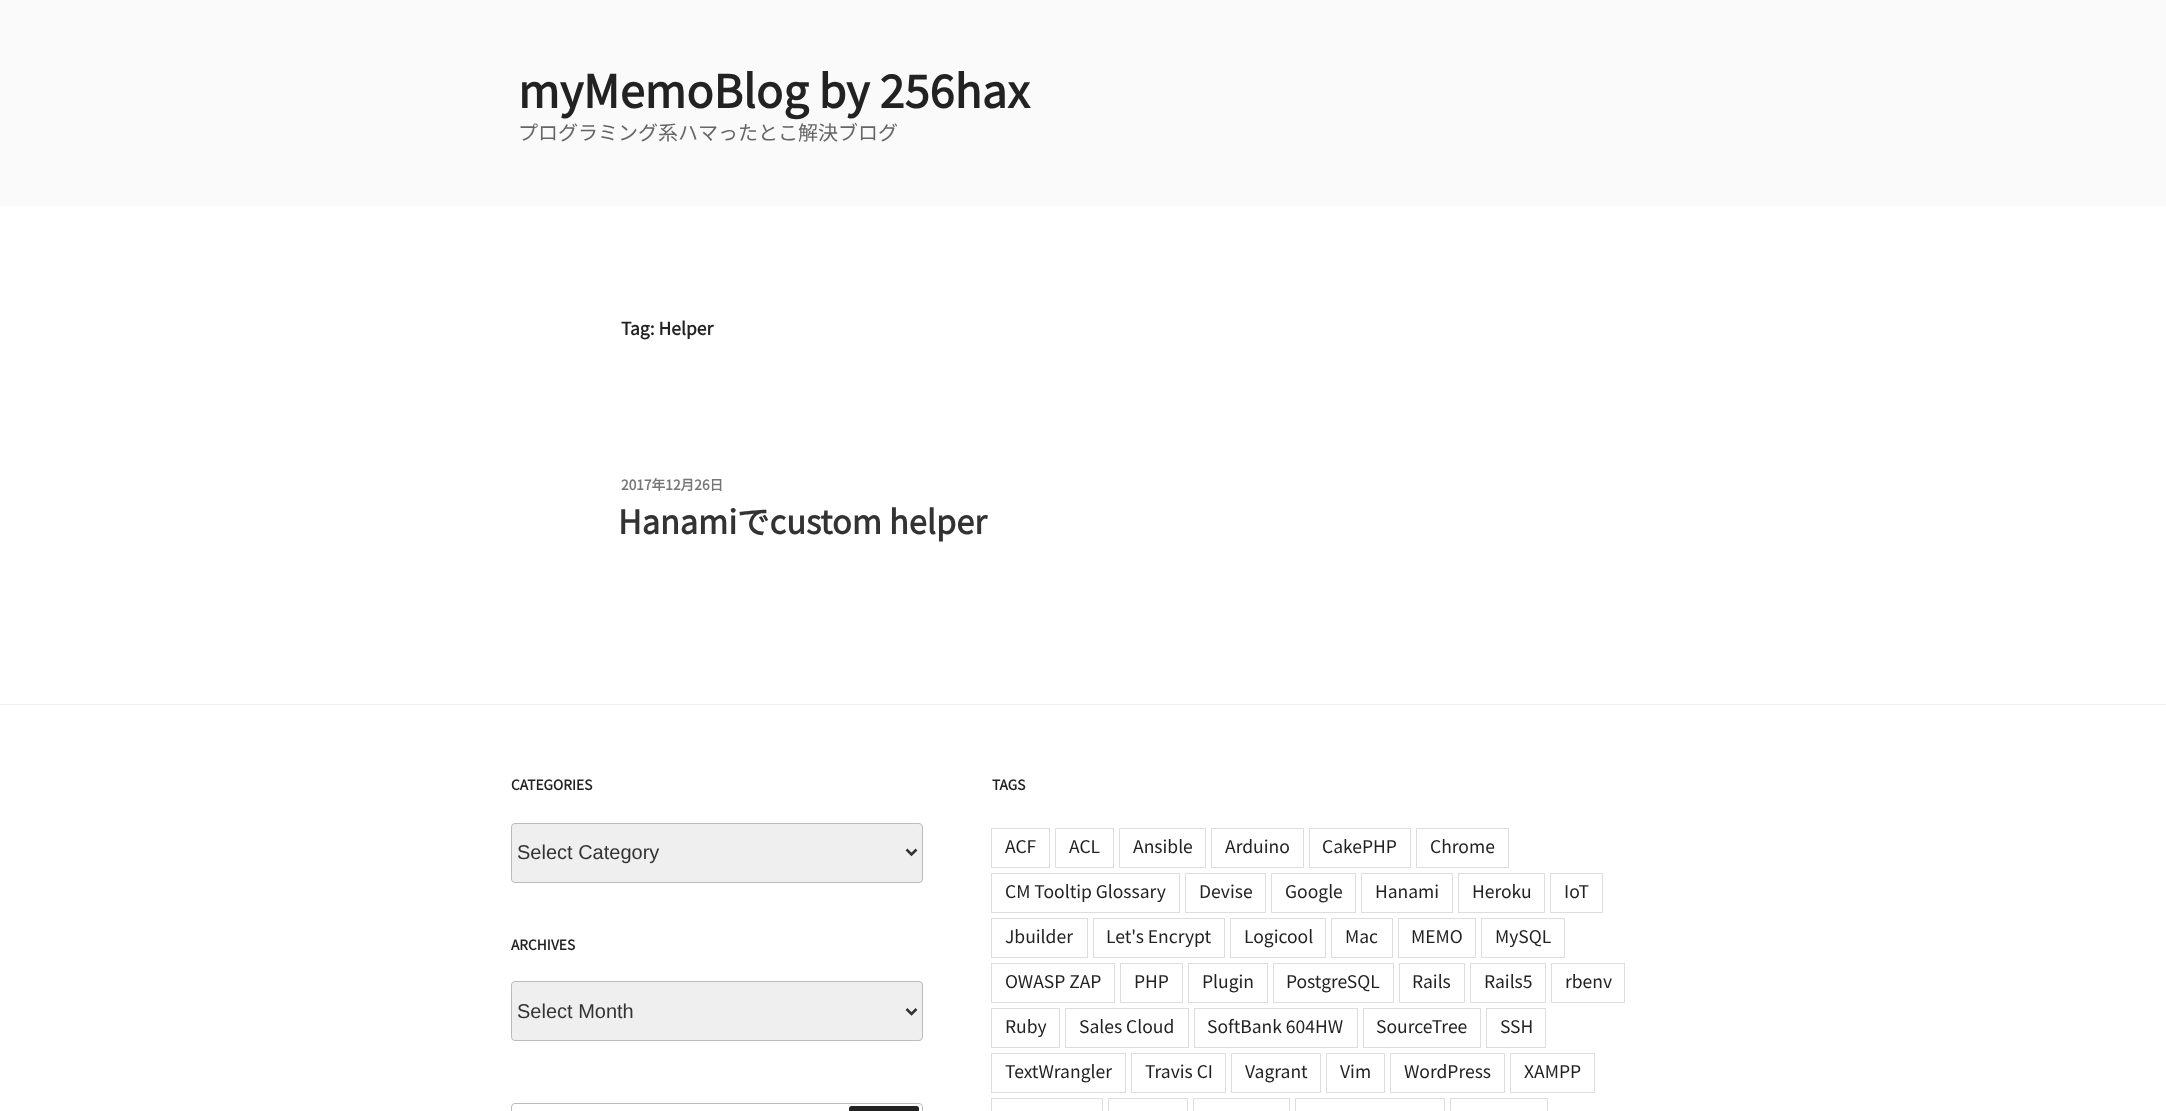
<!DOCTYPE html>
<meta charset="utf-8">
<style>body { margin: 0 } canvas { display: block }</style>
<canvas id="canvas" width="2166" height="1111"></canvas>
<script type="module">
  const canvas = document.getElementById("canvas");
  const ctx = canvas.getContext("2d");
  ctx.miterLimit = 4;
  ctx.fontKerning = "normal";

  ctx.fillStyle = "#ffffff";
  ctx.fillRect(0, 0, 2166, 1111);
  ctx.fillStyle = "#fafafa";
  ctx.fillRect(0, 0, 2166, 206);
  ctx.font = "bold 45px Noto Sans JP";
  ctx.fillStyle = "#222222";
  ctx.fillText("myMemoBlog by 256hax", 518, 108);
  ctx.font = "100 20px Noto Sans JP";
  ctx.fillStyle = "#666666";
  ctx.fillText("プログラミング系ハマったとこ解決ブログ", 518, 140);
  ctx.font = "bold 17.5px Noto Sans JP";
  ctx.fillStyle = "#222222";
  ctx.fillText("Tag: Helper", 621, 335);
  ctx.font = "bold 13.75px Noto Sans JP";
  ctx.fillStyle = "#767676";
  ctx.fillText("2017年12月26日", 621, 490);
  ctx.font = "bold 32.5px Noto Sans JP";
  ctx.fillStyle = "#333333";
  ctx.fillText("Hanamiでcustom helper", 618, 534);
  ctx.fillStyle = "#eeeeee";
  ctx.fillRect(0, 704, 2166, 1);
  ctx.font = "bold 13.75px Noto Sans JP";
  ctx.fillStyle = "#222222";
  ctx.fillText("CATEGORIES", 511, 790);
  ctx.fillStyle = "#efefef";
  ctx.beginPath();
  ctx.roundRect(511.5, 823.5, 411, 59, 3.5);
  ctx.fill();
  ctx.strokeStyle = "#bbbbbb";
  ctx.stroke();
  ctx.beginPath();
  ctx.moveTo(906.5, 849.5);
  ctx.lineTo(911.5, 854.5);
  ctx.lineTo(916.5, 849.5);
  ctx.strokeStyle = "#333333";
  ctx.lineWidth = 2.5;
  ctx.stroke();
  ctx.font = "20px Liberation Sans";
  ctx.fillStyle = "#333333";
  ctx.fillText("Select Category", 517, 859);
  ctx.font = "bold 13.75px Noto Sans JP";
  ctx.fillStyle = "#222222";
  ctx.fillText("ARCHIVES", 511, 950);
  ctx.fillStyle = "#efefef";
  ctx.beginPath();
  ctx.roundRect(511.5, 981.5, 411, 59, 3.5);
  ctx.fill();
  ctx.strokeStyle = "#bbbbbb";
  ctx.lineWidth = 1;
  ctx.stroke();
  ctx.beginPath();
  ctx.moveTo(906.5, 1009);
  ctx.lineTo(911.5, 1014);
  ctx.lineTo(916.5, 1009);
  ctx.strokeStyle = "#333333";
  ctx.lineWidth = 2.5;
  ctx.stroke();
  ctx.font = "20px Liberation Sans";
  ctx.fillStyle = "#333333";
  ctx.fillText("Select Month", 517, 1018);
  ctx.beginPath();
  ctx.roundRect(511.5, 1103.5, 411, 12, 3.5);
  ctx.strokeStyle = "#bbbbbb";
  ctx.lineWidth = 1;
  ctx.stroke();
  ctx.fillStyle = "#222222";
  ctx.beginPath();
  ctx.roundRect(849, 1106, 70, 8, 2.5);
  ctx.fill();
  ctx.font = "bold 13.75px Noto Sans JP";
  ctx.fillText("TAGS", 992, 790);
  ctx.strokeStyle = "#dddddd";
  ctx.strokeRect(991.5, 828.5, 58, 39);
  ctx.font = "100 17.5px Noto Sans JP";
  ctx.fillText("ACF", 1005, 853);
  ctx.strokeRect(1055.5, 828.5, 58, 39);
  ctx.fillText("ACL", 1069, 853);
  ctx.strokeRect(1119.5, 828.5, 86, 39);
  ctx.fillText("Ansible", 1133, 853);
  ctx.strokeRect(1211.5, 828.5, 92, 39);
  ctx.fillText("Arduino", 1225, 853);
  ctx.strokeRect(1309.5, 828.5, 101, 39);
  ctx.fillText("CakePHP", 1322, 853);
  ctx.strokeRect(1416.5, 828.5, 92, 39);
  ctx.fillText("Chrome", 1430, 853);
  ctx.strokeRect(991.5, 873.5, 188, 39);
  ctx.fillText("CM Tooltip Glossary", 1005, 898);
  ctx.strokeRect(1185.5, 873.5, 80, 39);
  ctx.fillText("Devise", 1199, 898);
  ctx.strokeRect(1271.5, 873.5, 84, 39);
  ctx.fillText("Google", 1285, 898);
  ctx.strokeRect(1361.5, 873.5, 91, 39);
  ctx.fillText("Hanami", 1375, 898);
  ctx.strokeRect(1458.5, 873.5, 86, 39);
  ctx.fillText("Heroku", 1472, 898);
  ctx.strokeRect(1550.5, 873.5, 52, 39);
  ctx.fillText("IoT", 1564, 898);
  ctx.strokeRect(991.5, 918.5, 96, 39);
  ctx.fillText("Jbuilder", 1005, 943);
  ctx.strokeRect(1093.5, 918.5, 131, 39);
  ctx.fillText("Let's Encrypt", 1106, 943);
  ctx.strokeRect(1230.5, 918.5, 95, 39);
  ctx.fillText("Logicool", 1244, 943);
  ctx.strokeRect(1331.5, 918.5, 61, 39);
  ctx.fillText("Mac", 1345, 943);
  ctx.strokeRect(1398.5, 918.5, 77, 39);
  ctx.fillText("MEMO", 1411, 943);
  ctx.strokeRect(1481.5, 918.5, 83, 39);
  ctx.fillText("MySQL", 1495, 943);
  ctx.strokeRect(991.5, 963.5, 123, 39);
  ctx.fillText("OWASP ZAP", 1005, 988);
  ctx.strokeRect(1120.5, 963.5, 62, 39);
  ctx.fillText("PHP", 1134, 988);
  ctx.strokeRect(1188.5, 963.5, 79, 39);
  ctx.fillText("Plugin", 1202, 988);
  ctx.strokeRect(1273.5, 963.5, 120, 39);
  ctx.fillText("PostgreSQL", 1286, 988);
  ctx.strokeRect(1399.5, 963.5, 65, 39);
  ctx.fillText("Rails", 1412, 988);
  ctx.strokeRect(1470.5, 963.5, 75, 39);
  ctx.fillText("Rails5", 1484, 988);
  ctx.strokeRect(1551.5, 963.5, 73, 39);
  ctx.fillText("rbenv", 1565, 988);
  ctx.strokeRect(991.5, 1008.5, 68, 39);
  ctx.fillText("Ruby", 1005, 1033);
  ctx.strokeRect(1065.5, 1008.5, 123, 39);
  ctx.fillText("Sales Cloud", 1079, 1033);
  ctx.strokeRect(1194.5, 1008.5, 163, 39);
  ctx.fillText("SoftBank 604HW", 1207, 1033);
  ctx.strokeRect(1363.5, 1008.5, 117, 39);
  ctx.fillText("SourceTree", 1376, 1033);
  ctx.strokeRect(1486.5, 1008.5, 59, 39);
  ctx.fillText("SSH", 1500, 1033);
  ctx.strokeRect(991.5, 1053.5, 134, 39);
  ctx.fillText("TextWrangler", 1005, 1078);
  ctx.strokeRect(1131.5, 1053.5, 94, 39);
  ctx.fillText("Travis CI", 1145, 1078);
  ctx.strokeRect(1231.5, 1053.5, 89, 39);
  ctx.fillText("Vagrant", 1245, 1078);
  ctx.strokeRect(1326.5, 1053.5, 58, 39);
  ctx.fillText("Vim", 1340, 1078);
  ctx.strokeRect(1390.5, 1053.5, 114, 39);
  ctx.fillText("WordPress", 1404, 1078);
  ctx.strokeRect(1510.5, 1053.5, 84, 39);
  ctx.fillText("XAMPP", 1524, 1078);
  ctx.strokeRect(991.5, 1098.5, 111, 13);
  ctx.strokeRect(1108.5, 1098.5, 79, 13);
  ctx.strokeRect(1193.5, 1098.5, 96, 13);
  ctx.strokeRect(1295.5, 1098.5, 149, 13);
  ctx.strokeRect(1450.5, 1098.5, 97, 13);
</script>
